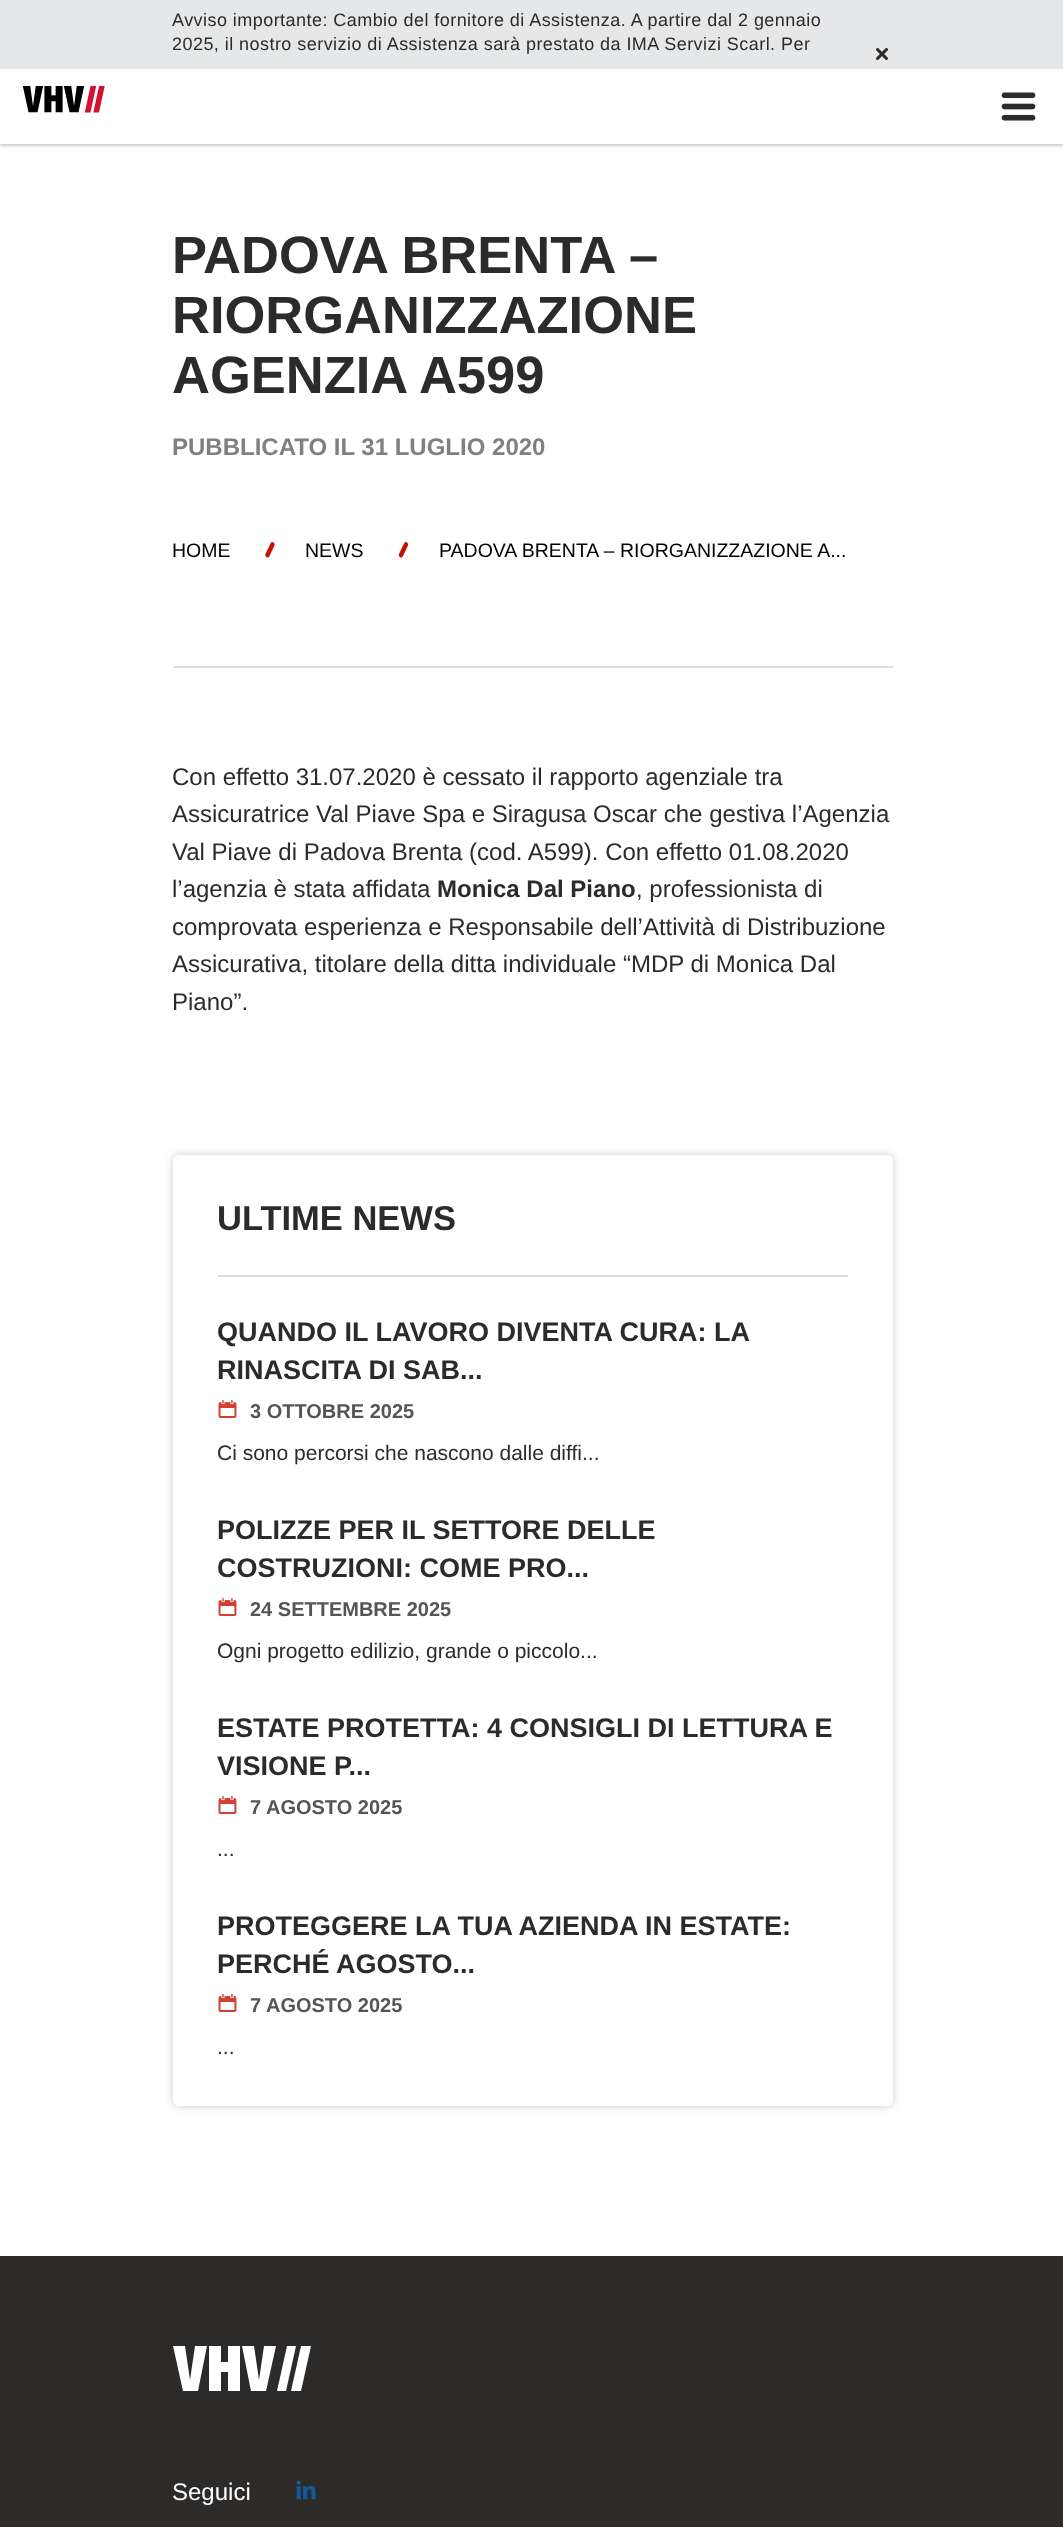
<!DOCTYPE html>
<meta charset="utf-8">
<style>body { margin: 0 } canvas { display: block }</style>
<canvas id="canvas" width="1063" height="2527"></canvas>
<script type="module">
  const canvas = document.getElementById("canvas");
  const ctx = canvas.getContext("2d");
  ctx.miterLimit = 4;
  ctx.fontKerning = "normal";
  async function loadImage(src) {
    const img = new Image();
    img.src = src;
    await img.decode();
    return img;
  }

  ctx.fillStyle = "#ffffff";
  ctx.fillRect(0, 0, 1063, 2527);
  ctx.fillStyle = "#e6e7e8";
  ctx.fillRect(0, 0, 1063, 69);
  ctx.letterSpacing = "0.45px";
  ctx.font = "18px Liberation Sans";
  ctx.fillStyle = "#2c2b2a";
  ctx.fillText("Avviso importante: Cambio del fornitore di Assistenza. A partire dal 2 gennaio", 172, 26);
  ctx.fillText("2025, il nostro servizio di Assistenza sarà prestato da IMA Servizi Scarl. Per", 172, 50);
  ctx.drawImage(await loadImage("img1.png"), 876, 48, 12, 12);
  ctx.fillStyle = "rgba(0, 0, 0, 0.2)";
  ctx.filter = "blur(1.5px)";
  ctx.beginPath();
  ctx.rect(0, 71, 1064, 75);
  ctx.fill();
  ctx.filter = "none";
  ctx.fillStyle = "#ffffff";
  ctx.fillRect(0, 69, 1063, 75);
  ctx.drawImage(await loadImage("img2.png"), 23, 86, 82, 27);
  ctx.drawImage(await loadImage("img3.png"), 1001, 92, 35, 29);
  ctx.letterSpacing = "0px";
  ctx.font = "bold 52.5px Liberation Sans";
  ctx.fillStyle = "#2c2b2a";
  ctx.fillText("PADOVA BRENTA –", 172, 273);
  ctx.fillText("RIORGANIZZAZIONE", 172, 333);
  ctx.fillText("AGENZIA A599", 172, 393);
  ctx.font = "bold 24px Liberation Sans";
  ctx.fillStyle = "#80807f";
  ctx.fillText("PUBBLICATO IL 31 LUGLIO 2020", 172, 455);
  ctx.font = "19.5px Liberation Sans";
  ctx.fillStyle = "#000000";
  ctx.fillText("HOME", 172, 557);
  ctx.fillStyle = "#c51100";
  ctx.beginPath();
  ctx.moveTo(273.5, 542.5);
  ctx.bezierCurveTo(274.5, 543, 275, 544, 274.5, 545.5);
  ctx.lineTo(269.5, 556);
  ctx.bezierCurveTo(269, 557.5, 267.5, 558, 266.5, 557);
  ctx.bezierCurveTo(265.5, 556.5, 265, 555.5, 265.5, 554);
  ctx.lineTo(270.5, 543.5);
  ctx.bezierCurveTo(271, 542, 272.5, 541.5, 273.5, 542.5);
  ctx.closePath();
  ctx.fill();
  ctx.fillStyle = "#000000";
  ctx.fillText("NEWS", 305, 557);
  ctx.fillStyle = "#c51100";
  ctx.beginPath();
  ctx.moveTo(407, 542.5);
  ctx.bezierCurveTo(408, 543, 408.5, 544, 408, 545.5);
  ctx.lineTo(403, 556);
  ctx.bezierCurveTo(402.5, 557.5, 401, 558, 400, 557);
  ctx.bezierCurveTo(399, 556.5, 398.5, 555.5, 399, 554);
  ctx.lineTo(404, 543.5);
  ctx.bezierCurveTo(404.5, 542, 406, 541.5, 407, 542.5);
  ctx.closePath();
  ctx.fill();
  ctx.fillStyle = "#000000";
  ctx.fillText("PADOVA BRENTA – RIORGANIZZAZIONE A...", 439, 557);
  ctx.fillStyle = "#dadfe3";
  ctx.fillRect(173, 666, 720, 2);
  ctx.font = "24px Liberation Sans";
  ctx.fillStyle = "#2c2b2a";
  ctx.fillText("Con effetto 31.07.2020 è cessato il rapporto agenziale tra", 172, 785);
  ctx.fillText("Assicuratrice Val Piave Spa e Siragusa Oscar che gestiva l’Agenzia", 172, 822);
  ctx.fillText("Val Piave di Padova Brenta (cod. A599). Con effetto 01.08.2020", 172, 860);
  ctx.fillText("l’agenzia è stata affidata", 172, 897);
  ctx.font = "bold 24px Liberation Sans";
  ctx.fillText("Monica Dal Piano", 437, 897);
  ctx.font = "24px Liberation Sans";
  ctx.fillText(", professionista di", 636, 897);
  ctx.fillText("comprovata esperienza e Responsabile dell’Attività di Distribuzione", 172, 935);
  ctx.fillText("Assicurativa, titolare della ditta individuale “MDP di Monica Dal", 172, 972);
  ctx.fillText("Piano”.", 172, 1010);
  ctx.fillStyle = "rgba(0, 0, 0, 0.2)";
  ctx.filter = "blur(4px)";
  ctx.beginPath();
  ctx.roundRect(173, 1155, 720, 951, 6);
  ctx.fill();
  ctx.filter = "none";
  ctx.fillStyle = "#ffffff";
  ctx.beginPath();
  ctx.roundRect(173, 1155, 720, 951, 6);
  ctx.fill();
  ctx.fillStyle = "#dadfe3";
  ctx.fillRect(218, 1275, 630, 2);
  ctx.font = "bold 34.5px Liberation Sans";
  ctx.fillStyle = "#2c2b2a";
  ctx.fillText("ULTIME NEWS", 217, 1230);
  ctx.font = "bold 27px Liberation Sans";
  ctx.fillText("QUANDO IL LAVORO DIVENTA CURA: LA", 217, 1341);
  ctx.fillText("RINASCITA DI SAB...", 217, 1379);
  ctx.drawImage(await loadImage("img4.png"), 218, 1400, 19, 18);
  ctx.font = "bold 20px Liberation Sans";
  ctx.fillStyle = "#565555";
  ctx.fillText("3 OTTOBRE 2025", 250, 1418);
  ctx.font = "21px Liberation Sans";
  ctx.fillStyle = "#2c2b2a";
  ctx.fillText("Ci sono percorsi che nascono dalle diffi...", 217, 1460);
  ctx.font = "bold 27px Liberation Sans";
  ctx.fillText("POLIZZE PER IL SETTORE DELLE", 217, 1539);
  ctx.fillText("COSTRUZIONI: COME PRO...", 217, 1577);
  ctx.drawImage(await loadImage("img4.png"), 218, 1598, 19, 18);
  ctx.font = "bold 20px Liberation Sans";
  ctx.fillStyle = "#565555";
  ctx.fillText("24 SETTEMBRE 2025", 250, 1616);
  ctx.font = "21px Liberation Sans";
  ctx.fillStyle = "#2c2b2a";
  ctx.fillText("Ogni progetto edilizio, grande o piccolo...", 217, 1658);
  ctx.font = "bold 27px Liberation Sans";
  ctx.fillText("ESTATE PROTETTA: 4 CONSIGLI DI LETTURA E", 217, 1737);
  ctx.fillText("VISIONE P...", 217, 1775);
  ctx.drawImage(await loadImage("img4.png"), 218, 1796, 19, 18);
  ctx.font = "bold 20px Liberation Sans";
  ctx.fillStyle = "#565555";
  ctx.fillText("7 AGOSTO 2025", 250, 1814);
  ctx.font = "21px Liberation Sans";
  ctx.fillStyle = "#2c2b2a";
  ctx.fillText("...", 217, 1856);
  ctx.font = "bold 27px Liberation Sans";
  ctx.fillText("PROTEGGERE LA TUA AZIENDA IN ESTATE:", 217, 1935);
  ctx.fillText("PERCHÉ AGOSTO...", 217, 1973);
  ctx.drawImage(await loadImage("img4.png"), 218, 1994, 19, 18);
  ctx.font = "bold 20px Liberation Sans";
  ctx.fillStyle = "#565555";
  ctx.fillText("7 AGOSTO 2025", 250, 2012);
  ctx.font = "21px Liberation Sans";
  ctx.fillStyle = "#2c2b2a";
  ctx.fillText("...", 217, 2054);
  ctx.fillRect(0, 2256, 1063, 271);
  ctx.fillStyle = "#ffffff";
  ctx.beginPath();
  ctx.moveTo(183, 2391);
  ctx.lineTo(198, 2391);
  ctx.lineTo(207, 2346);
  ctx.lineTo(195, 2346);
  ctx.lineTo(190, 2380);
  ctx.lineTo(185, 2346);
  ctx.lineTo(173, 2346);
  ctx.closePath();
  ctx.moveTo(209, 2391);
  ctx.lineTo(221, 2391);
  ctx.lineTo(221, 2372);
  ctx.lineTo(228, 2372);
  ctx.lineTo(228, 2391);
  ctx.lineTo(240, 2391);
  ctx.lineTo(240, 2346);
  ctx.lineTo(228, 2346);
  ctx.lineTo(228, 2362);
  ctx.lineTo(221, 2362);
  ctx.lineTo(221, 2346);
  ctx.lineTo(209, 2346);
  ctx.closePath();
  ctx.moveTo(251, 2391);
  ctx.lineTo(266, 2391);
  ctx.lineTo(276, 2346);
  ctx.lineTo(264, 2346);
  ctx.lineTo(259, 2380);
  ctx.lineTo(254, 2346);
  ctx.lineTo(242, 2346);
  ctx.closePath();
  ctx.fill();
  ctx.beginPath();
  ctx.moveTo(277, 2391);
  ctx.lineTo(286, 2391);
  ctx.lineTo(296, 2346);
  ctx.lineTo(287, 2346);
  ctx.closePath();
  ctx.fill();
  ctx.beginPath();
  ctx.moveTo(291, 2391);
  ctx.lineTo(301, 2391);
  ctx.lineTo(311, 2346);
  ctx.lineTo(301, 2346);
  ctx.closePath();
  ctx.fill();
  ctx.font = "24px Liberation Sans";
  ctx.fillText("Seguici", 172, 2500);
  ctx.drawImage(await loadImage("img5.png"), 296, 2480, 20, 20);
</script>
